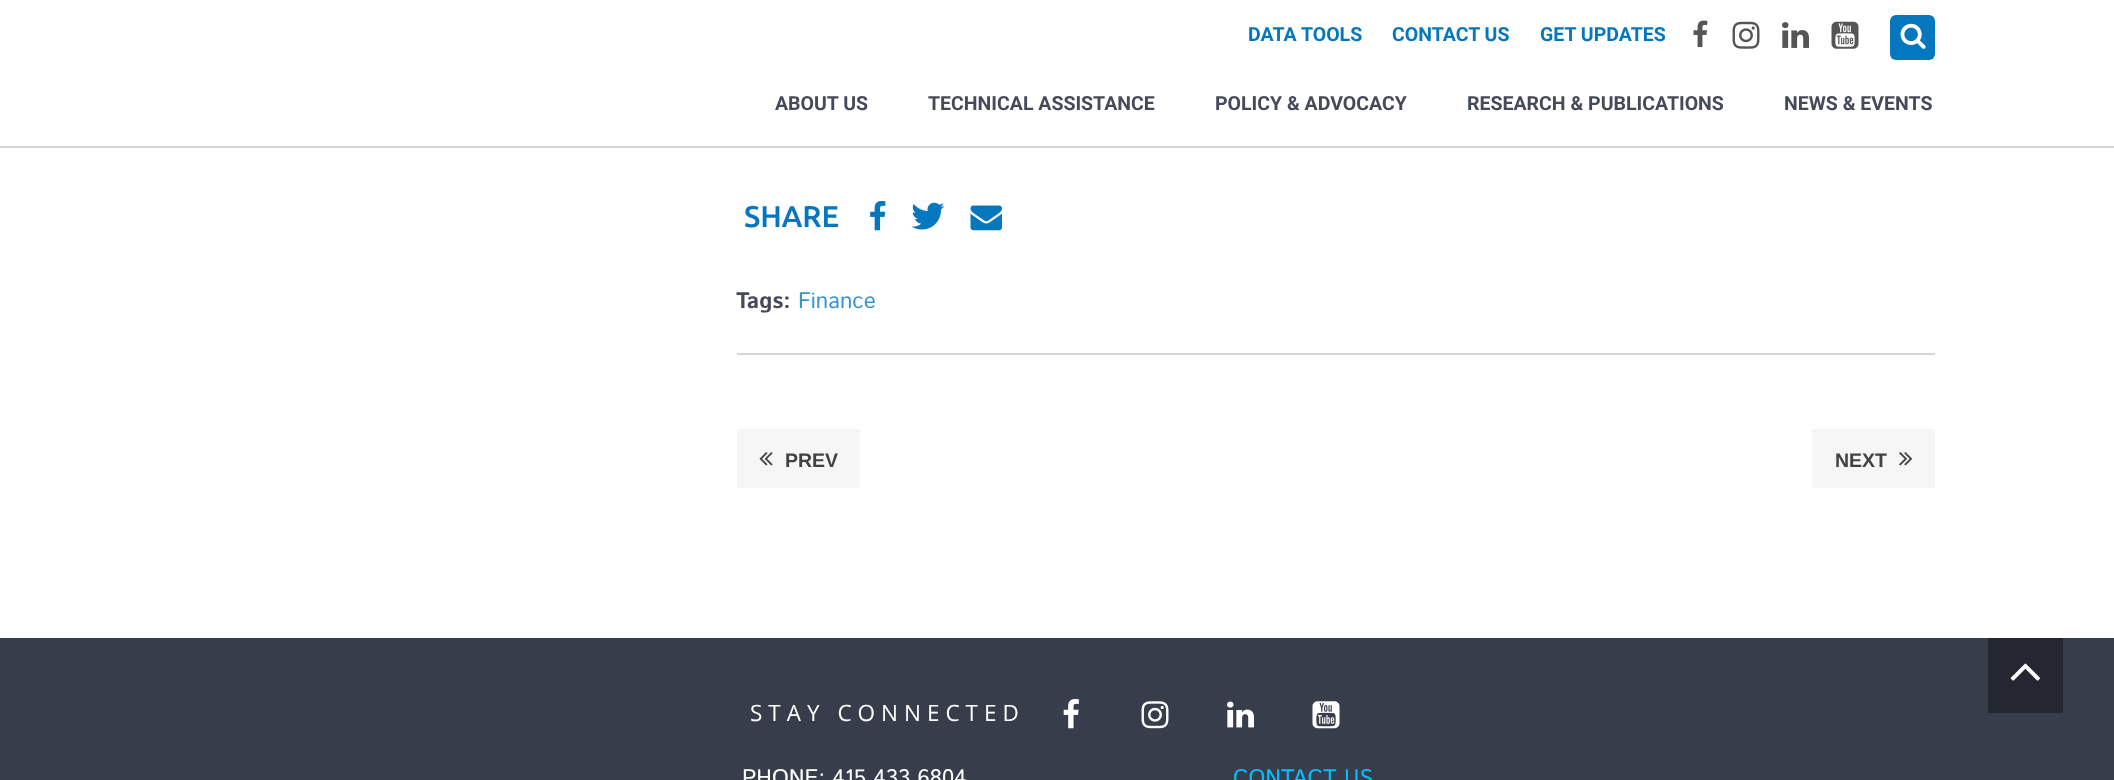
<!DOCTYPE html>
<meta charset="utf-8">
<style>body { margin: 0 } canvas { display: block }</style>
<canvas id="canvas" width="2114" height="780"></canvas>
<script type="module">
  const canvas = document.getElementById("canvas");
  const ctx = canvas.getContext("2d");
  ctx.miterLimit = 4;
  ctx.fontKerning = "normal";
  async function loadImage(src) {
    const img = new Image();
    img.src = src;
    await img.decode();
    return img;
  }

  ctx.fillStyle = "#ffffff";
  ctx.fillRect(0, 0, 2114, 780);
  ctx.fillStyle = "#d6d6d6";
  ctx.fillRect(0, 146, 2114, 2);
  ctx.font = "bold 19.5px Roboto";
  ctx.fillStyle = "#0577be";
  ctx.fillText("DATA TOOLS", 1248, 41);
  ctx.fillText("CONTACT US", 1392, 41);
  ctx.fillText("GET UPDATES", 1540, 41);
  ctx.drawImage(await loadImage("img1.png"), 1693, 20, 15, 28);
  ctx.drawImage(await loadImage("img2.png"), 1732, 21, 28, 28);
  ctx.drawImage(await loadImage("img3.png"), 1782, 22, 27, 26);
  ctx.drawImage(await loadImage("img4.png"), 1831, 21, 28, 28);
  ctx.fillStyle = "#eeeeee";
  ctx.beginPath();
  ctx.roundRect(1890, 15, 45, 45, 5);
  ctx.fill();
  ctx.save();
  ctx.beginPath();
  ctx.roundRect(1890, 15, 45, 45, 5);
  ctx.clip();
  ctx.fillStyle = "#0577be";
  ctx.beginPath();
  ctx.roundRect(1890, 15, 45, 45, 6);
  ctx.fill();
  ctx.restore();
  ctx.drawImage(await loadImage("img5.png"), 1900, 23, 26, 26);
  ctx.fillStyle = "#454a5a";
  ctx.fillText("ABOUT US", 775, 110);
  ctx.fillText("TECHNICAL ASSISTANCE", 928, 110);
  ctx.fillText("POLICY & ADVOCACY", 1215, 110);
  ctx.fillText("RESEARCH & PUBLICATIONS", 1467, 110);
  ctx.fillText("NEWS & EVENTS", 1784, 110);
  ctx.font = "500 30px Ubuntu";
  ctx.fillStyle = "#0577be";
  ctx.fillText("SHARE", 744, 227);
  ctx.drawImage(await loadImage("img6.png"), 870, 201, 16, 30);
  ctx.drawImage(await loadImage("img7.png"), 911, 202, 34, 28);
  ctx.drawImage(await loadImage("img8.png"), 970, 205, 32, 26);
  ctx.font = "bold 22.5px Istok Web";
  ctx.fillStyle = "#454a5a";
  ctx.fillText("Tags:", 736, 308);
  ctx.font = "22.5px Istok Web";
  ctx.fillStyle = "#3796cc";
  ctx.fillText("Finance", 798, 308);
  ctx.fillStyle = "#d6d6d6";
  ctx.fillRect(737, 353, 1198, 2);
  ctx.fillStyle = "#f6f6f6";
  ctx.fillRect(737, 429, 123, 59);
  ctx.drawImage(await loadImage("img9.png"), 759, 452, 14, 14);
  ctx.font = "bold 19.5px Liberation Sans";
  ctx.fillStyle = "#424243";
  ctx.fillText("PREV", 785, 467);
  ctx.fillStyle = "#f6f6f6";
  ctx.fillRect(1812, 429, 123, 59);
  ctx.fillStyle = "#424243";
  ctx.fillText("NEXT", 1835, 467);
  ctx.drawImage(await loadImage("img10.png"), 1899, 452, 14, 14);
  ctx.fillStyle = "#383d4b";
  ctx.fillRect(0, 638, 2114, 142);
  ctx.fillStyle = "#242731";
  ctx.fillRect(1988, 638, 75, 75);
  ctx.drawImage(await loadImage("img11.png"), 2010, 663, 30, 18);
  ctx.letterSpacing = "6px";
  ctx.font = "22.5px Open Sans";
  ctx.fillStyle = "#ffffff";
  ctx.fillText("STAY CONNECTED", 750, 721);
  ctx.drawImage(await loadImage("img12.png"), 1063, 699, 16, 30);
  ctx.drawImage(await loadImage("img13.png"), 1141, 701, 28, 28);
  ctx.drawImage(await loadImage("img14.png"), 1227, 701, 27, 27);
  ctx.drawImage(await loadImage("img15.png"), 1312, 701, 28, 28);
  ctx.letterSpacing = "0px";
  ctx.font = "22.5px Istok Web";
  ctx.fillText("PHONE: 415 433 6804", 742, 785);
  ctx.fillStyle = "#00bfff";
  ctx.fillText("CONTACT US", 1233, 785);
</script>
